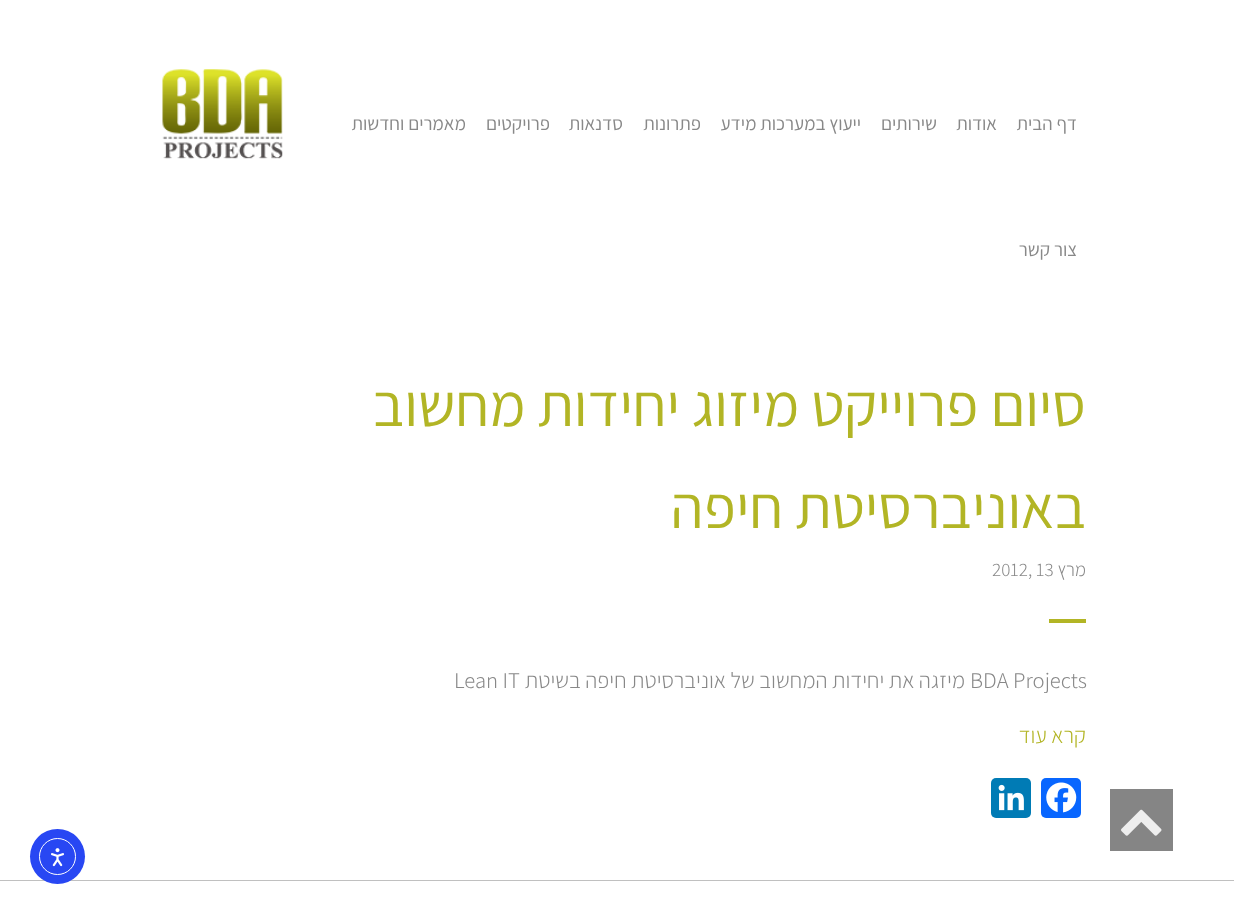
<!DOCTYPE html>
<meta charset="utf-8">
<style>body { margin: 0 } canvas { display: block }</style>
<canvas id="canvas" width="1234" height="913"></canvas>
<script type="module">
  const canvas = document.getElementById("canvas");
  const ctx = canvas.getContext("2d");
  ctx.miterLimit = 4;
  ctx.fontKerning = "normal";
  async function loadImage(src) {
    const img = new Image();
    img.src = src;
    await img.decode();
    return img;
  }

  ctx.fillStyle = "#ffffff";
  ctx.fillRect(0, 0, 1234, 913);
  ctx.direction = "rtl";
  ctx.font = "19px Assistant";
  ctx.fillStyle = "#888888";
  ctx.fillText("דף הבית", 1077, 130);
  ctx.fillText("אודות", 997, 130);
  ctx.fillText("שירותים", 937, 130);
  ctx.fillText("ייעוץ במערכות מידע", 861, 130);
  ctx.fillText("פתרונות", 701, 130);
  ctx.fillText("סדנאות", 623, 130);
  ctx.fillText("פרויקטים", 550, 130);
  ctx.fillText("מאמרים וחדשות", 466, 130);
  ctx.fillText("צור קשר", 1077, 256);
  ctx.drawImage(await loadImage("img1.png"), 162, 69, 121, 90);
  ctx.font = "60px Assistant";
  ctx.fillStyle = "#b2b525";
  ctx.fillText("סיום פרוייקט מיזוג יחידות מחשוב", 1086, 426);
  ctx.fillText("באוניברסיטת חיפה", 1086, 528);
  ctx.font = "300 19px Assistant";
  ctx.fillStyle = "#888888";
  ctx.fillText("מרץ", 1086, 576);
  ctx.direction = "ltr";
  ctx.fillText("2012, 13", 992, 576);
  ctx.fillStyle = "#b2b525";
  ctx.fillRect(1049, 619, 37, 4);
  ctx.font = "300 22.5px Assistant";
  ctx.fillStyle = "#888888";
  ctx.fillText("BDA Projects", 970, 688);
  ctx.direction = "rtl";
  ctx.fillText("מיזגה את יחידות המחשוב של אוניברסיטת חיפה בשיטת", 965, 688);
  ctx.direction = "ltr";
  ctx.fillText("Lean IT", 454, 688);
  ctx.direction = "rtl";
  ctx.fillStyle = "#b2b525";
  ctx.fillText("קרא עוד", 1086, 743);
  ctx.fillStyle = "#0866ff";
  ctx.beginPath();
  ctx.roundRect(1041, 778, 40, 40, 5);
  ctx.fill();
  ctx.drawImage(await loadImage("img2.png"), 1046, 782, 31, 31);
  ctx.fillStyle = "#007bb5";
  ctx.beginPath();
  ctx.roundRect(991, 778, 40, 40, 5);
  ctx.fill();
  ctx.drawImage(await loadImage("img3.png"), 998, 784, 26, 27);
  ctx.fillStyle = "#c0c0c0";
  ctx.fillRect(0, 880, 1234, 1);
  ctx.fillStyle = "#858585";
  ctx.fillRect(1110, 789, 63, 62);
  ctx.drawImage(await loadImage("img4.png"), 1121, 809, 41, 27);
  ctx.fillStyle = "#2847f3";
  ctx.beginPath();
  ctx.arc(57.5, 856.5, 27.5, 0, Math.PI * 2);
  ctx.fill();
  ctx.beginPath();
  ctx.arc(57.5, 856.5, 18, 0, Math.PI * 2);
  ctx.strokeStyle = "#ffffff";
  ctx.stroke();
  ctx.drawImage(await loadImage("img5.png"), 51, 848, 13, 19);
</script>
